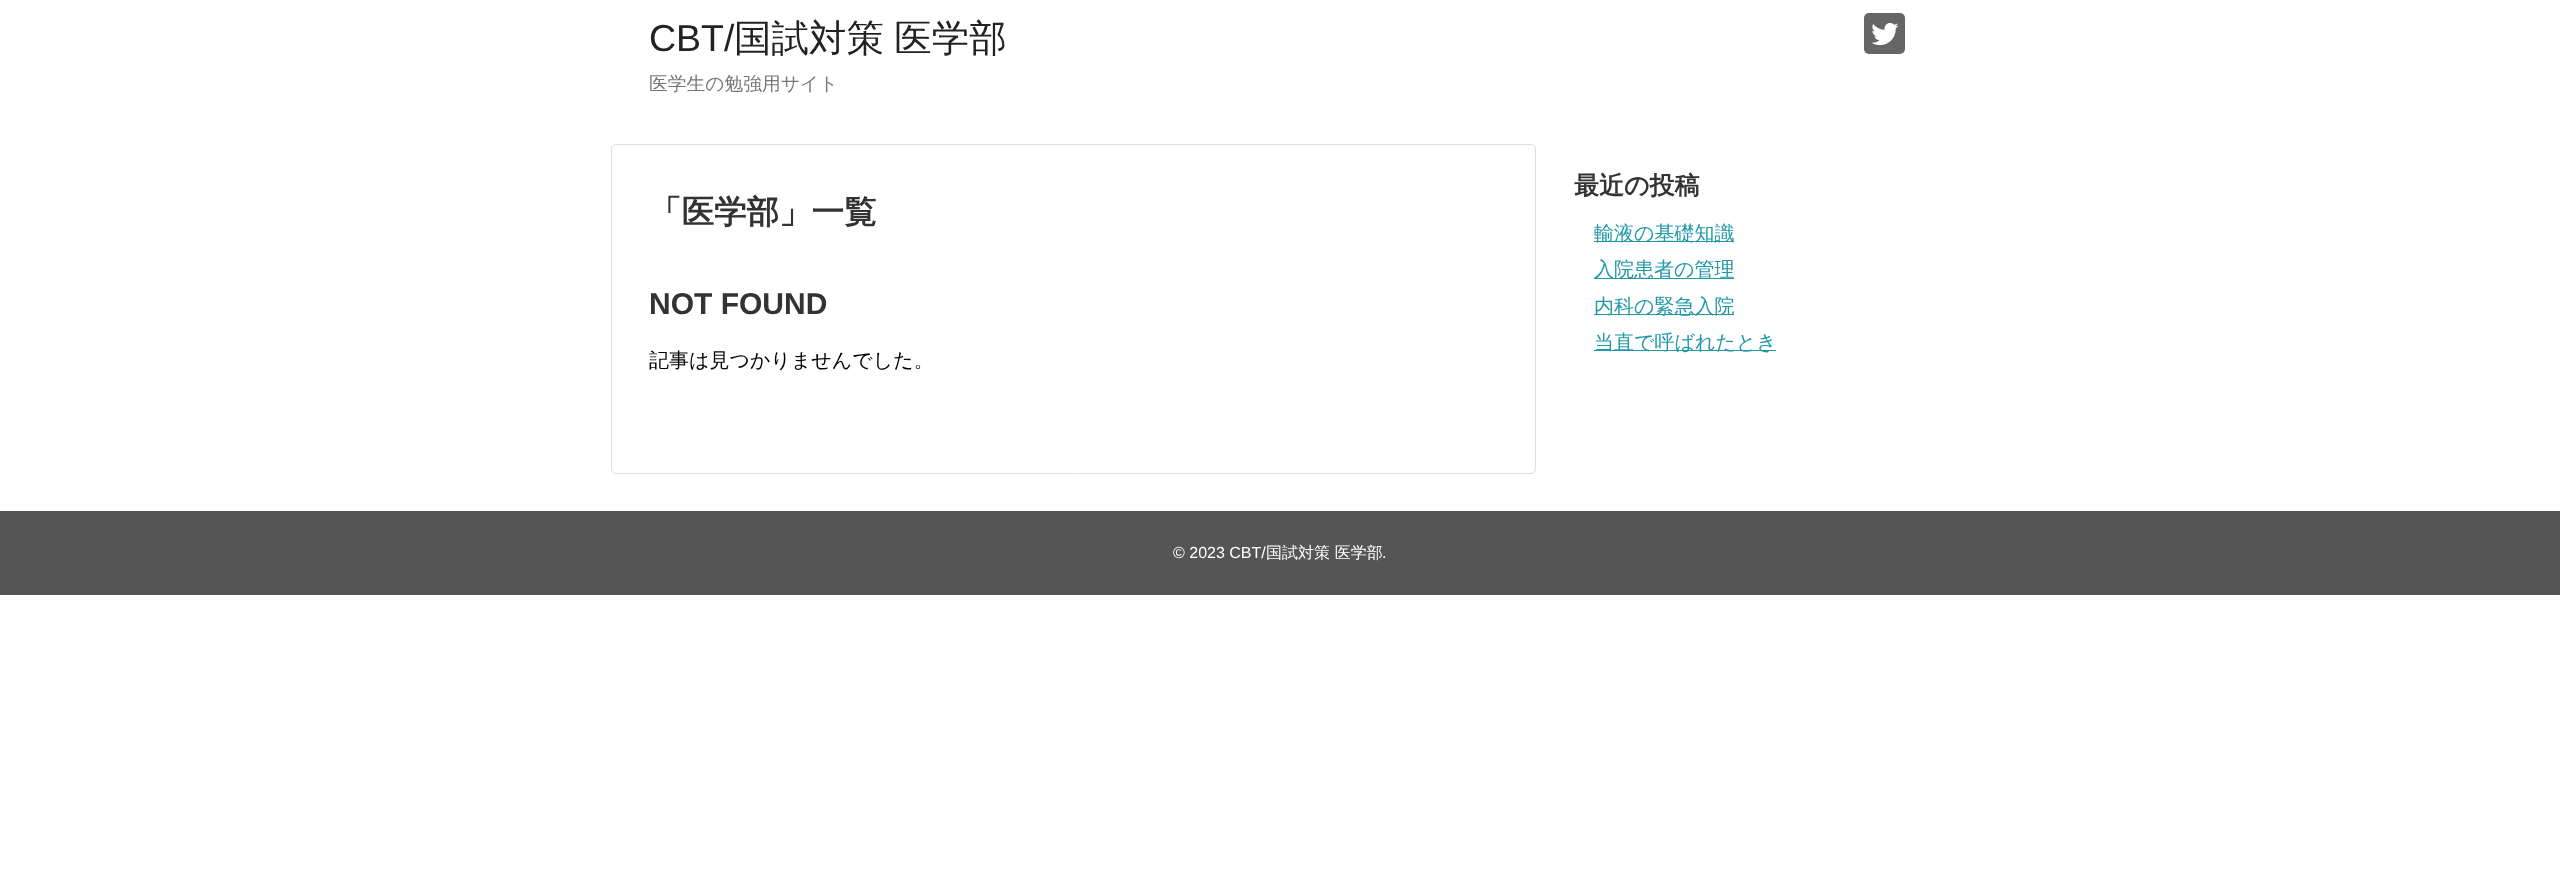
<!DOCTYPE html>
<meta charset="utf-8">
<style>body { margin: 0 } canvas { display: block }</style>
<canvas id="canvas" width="2560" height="875"></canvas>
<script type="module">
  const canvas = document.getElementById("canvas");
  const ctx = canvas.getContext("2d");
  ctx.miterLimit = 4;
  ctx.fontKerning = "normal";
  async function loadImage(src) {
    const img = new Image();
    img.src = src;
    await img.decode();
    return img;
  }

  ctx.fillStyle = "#ffffff";
  ctx.fillRect(0, 0, 2560, 875);
  ctx.font = "37.5px Liberation Sans";
  ctx.fillStyle = "#222222";
  ctx.fillText("CBT/", 649, 51);
  ctx.wordSpacing = "-1px";
  ctx.font = "500 37.5px WenQuanYi Zen Hei";
  ctx.fillText("国試対策 医学部", 734, 51);
  ctx.wordSpacing = "0px";
  ctx.font = "500 18.75px WenQuanYi Zen Hei";
  ctx.fillStyle = "#777777";
  ctx.fillText("医学生の勉強用サイト", 649, 90);
  ctx.fillStyle = "#666666";
  ctx.beginPath();
  ctx.roundRect(1864, 13, 41, 41, 5);
  ctx.fill();
  ctx.drawImage(await loadImage("img1.png"), 1871, 23, 28, 23);
  ctx.beginPath();
  ctx.roundRect(611.5, 144.5, 924, 329, 4.5);
  ctx.strokeStyle = "#dddddd";
  ctx.stroke();
  ctx.font = "bold 32.5px WenQuanYi Zen Hei";
  ctx.fillStyle = "#333333";
  ctx.fillText("「医学部」一覧", 649, 223);
  ctx.font = "bold 30px Liberation Sans";
  ctx.fillText("NOT FOUND", 649, 314);
  ctx.font = "500 20px WenQuanYi Zen Hei";
  ctx.fillStyle = "#000000";
  ctx.fillText("記事は見つかりませんでした。", 649, 367);
  ctx.font = "bold 25px WenQuanYi Zen Hei";
  ctx.fillStyle = "#333333";
  ctx.fillText("最近の投稿", 1574, 194);
  ctx.fillStyle = "#2098a8";
  ctx.fillRect(1594, 241, 140, 1);
  ctx.font = "500 20px WenQuanYi Zen Hei";
  ctx.fillText("輸液の基礎知識", 1594, 240);
  ctx.fillRect(1594, 278, 140, 1);
  ctx.fillText("入院患者の管理", 1594, 276);
  ctx.fillRect(1594, 314, 140, 1);
  ctx.fillText("内科の緊急入院", 1594, 313);
  ctx.fillRect(1594, 350, 182, 1);
  ctx.fillText("当直で呼ばれたとき", 1594, 349);
  ctx.fillStyle = "#555555";
  ctx.fillRect(0, 511, 2560, 84);
  ctx.font = "16px Liberation Sans";
  ctx.fillStyle = "#ffffff";
  ctx.fillText("© 2023 CBT/", 1173, 558);
  ctx.font = "500 16px WenQuanYi Zen Hei";
  ctx.fillText("国試対策 医学部", 1266, 558);
  ctx.font = "16px Liberation Sans";
  ctx.fillText(".", 1382, 558);
</script>
